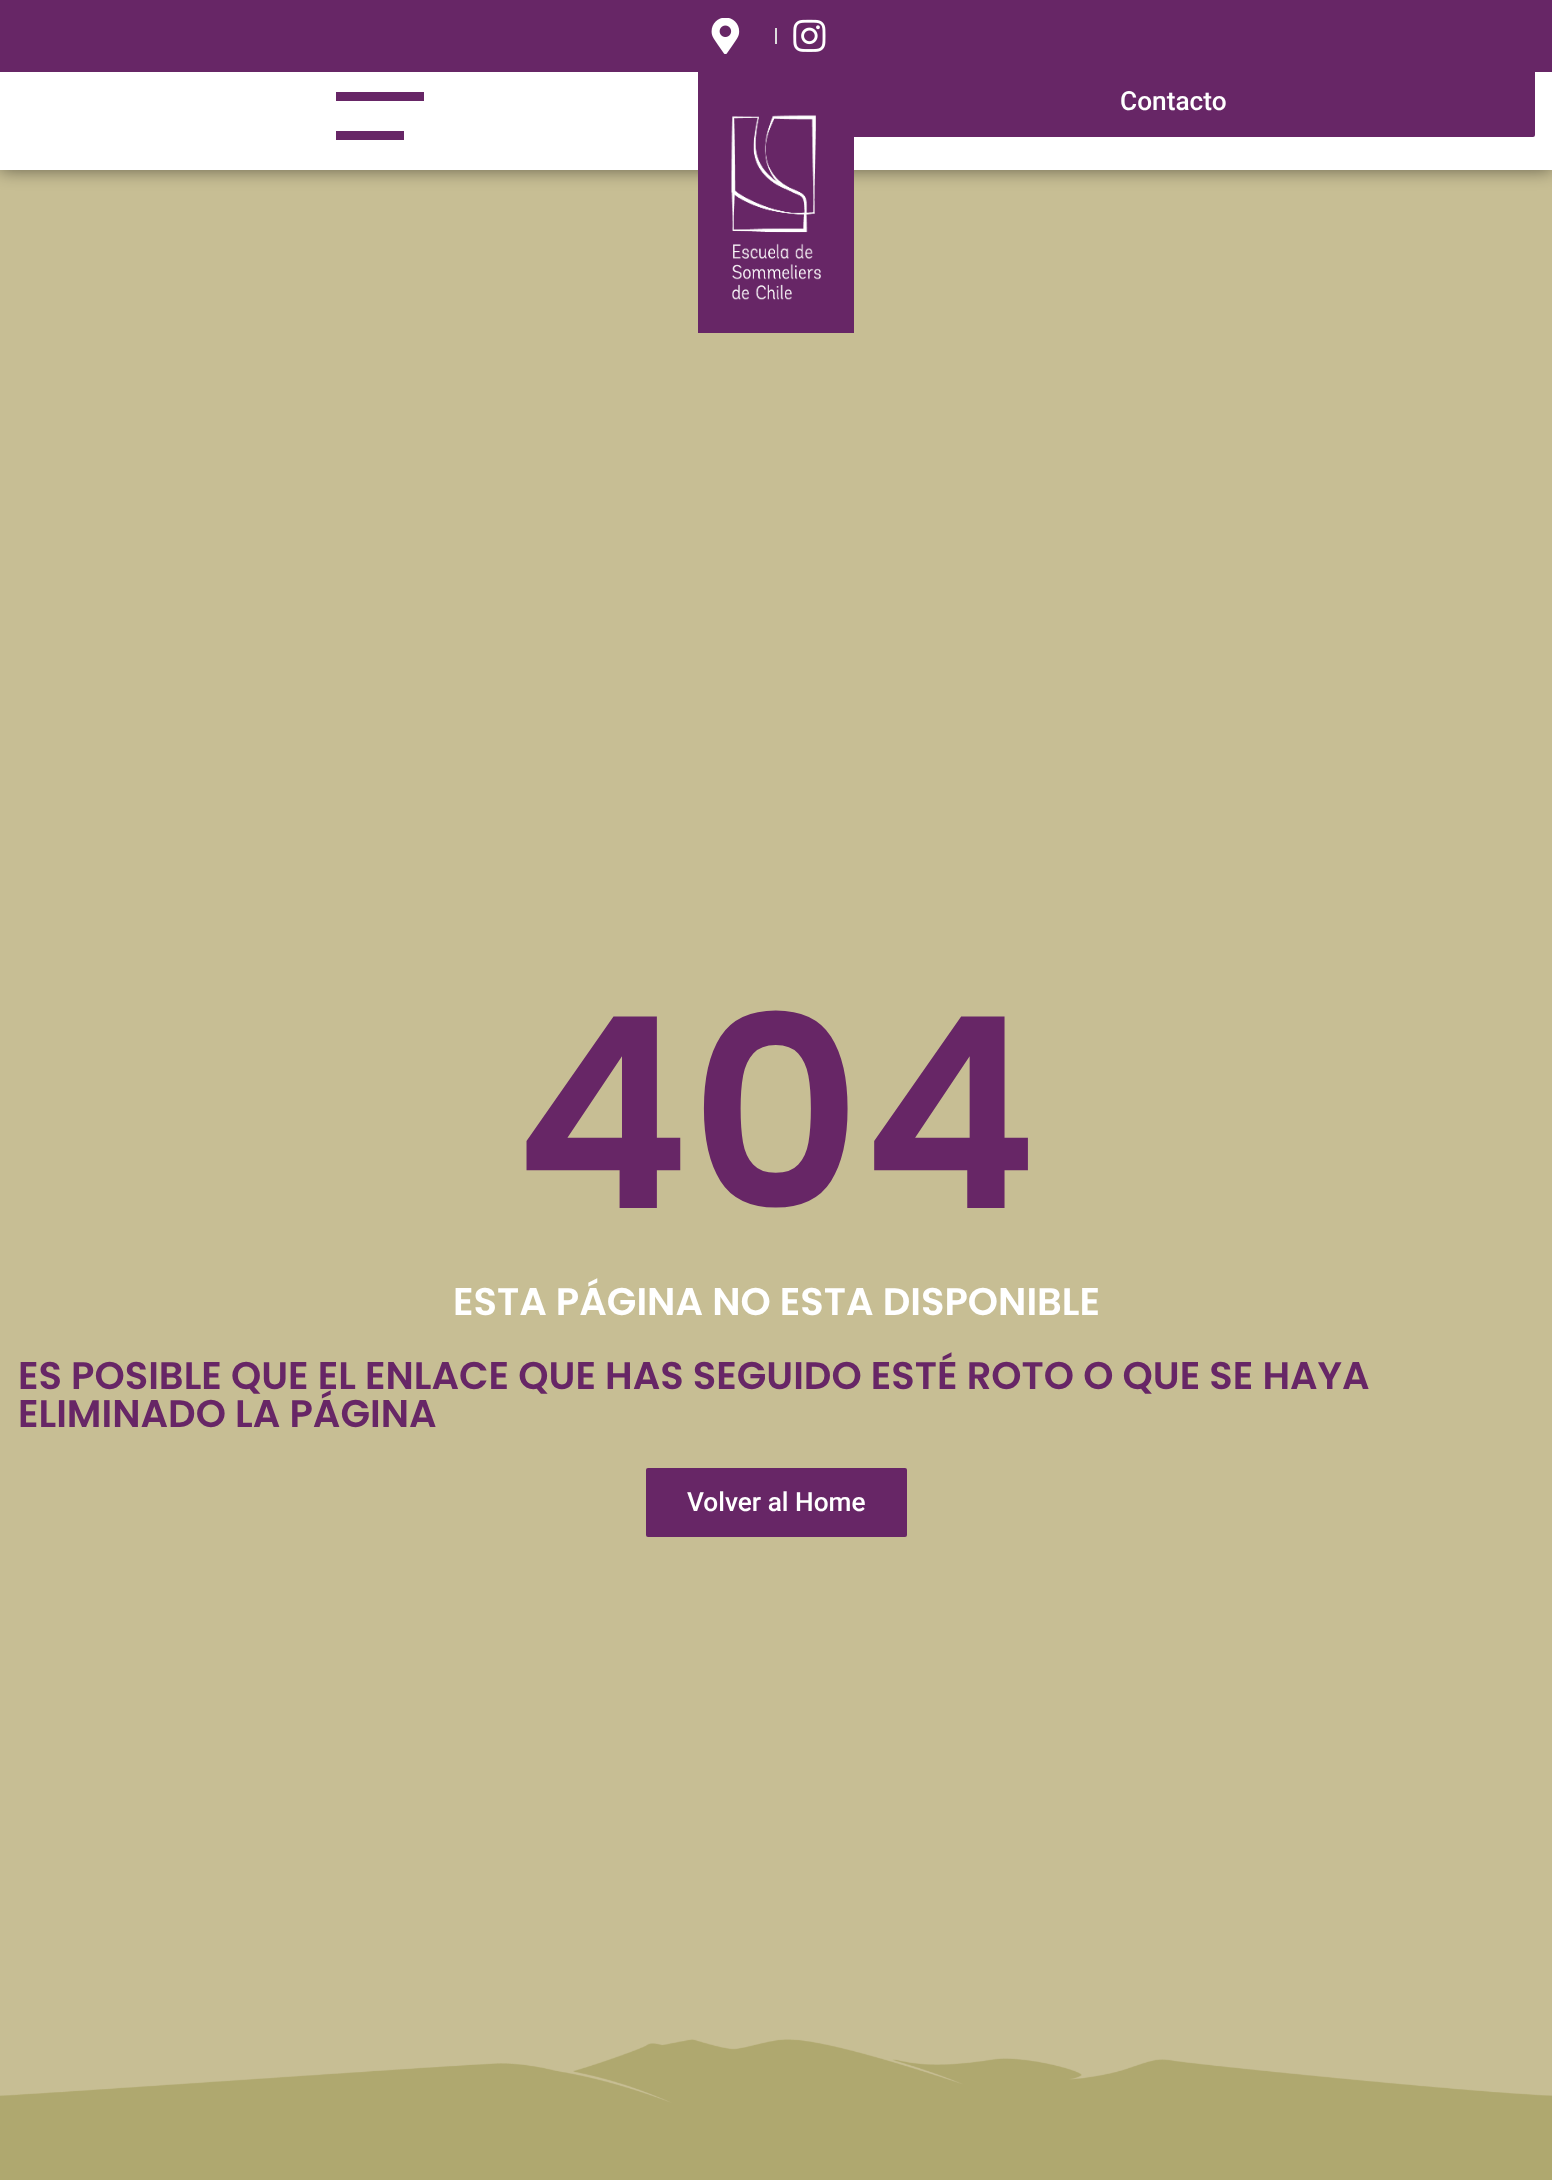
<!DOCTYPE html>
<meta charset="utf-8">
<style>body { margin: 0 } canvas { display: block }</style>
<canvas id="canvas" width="1552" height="2180"></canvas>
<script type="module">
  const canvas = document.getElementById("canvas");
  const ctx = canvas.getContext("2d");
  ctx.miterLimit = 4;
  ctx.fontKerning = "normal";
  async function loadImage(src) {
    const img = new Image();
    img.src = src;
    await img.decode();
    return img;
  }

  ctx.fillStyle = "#c7be94";
  ctx.fillRect(0, 0, 1552, 2180);
  ctx.fillStyle = "rgba(0, 0, 0, 0.5)";
  ctx.filter = "blur(9px)";
  ctx.beginPath();
  ctx.rect(0, 35, 1552, 135);
  ctx.fill();
  ctx.filter = "none";
  ctx.fillStyle = "#ffffff";
  ctx.fillRect(0, 72, 1552, 98);
  ctx.fillStyle = "#672666";
  ctx.beginPath();
  ctx.roundRect(812, 68, 723, 69, 2);
  ctx.fill();
  ctx.fillRect(0, 0, 1552, 72);
  ctx.drawImage(await loadImage("img1.png"), 711, 18, 29, 36);
  ctx.fillStyle = "#dddddd";
  ctx.fillRect(775, 28, 2, 16);
  ctx.drawImage(await loadImage("img2.png"), 793, 19, 33, 33);
  ctx.fillStyle = "#672666";
  ctx.fillRect(698, 72, 156, 261);
  ctx.drawImage(await loadImage("img3.png"), 731, 115, 90, 185);
  ctx.fillRect(336, 92, 88, 9);
  ctx.fillRect(336, 131, 68, 9);
  ctx.font = "500 26.25px Roboto";
  ctx.fillStyle = "#ffffff";
  ctx.fillText("Contacto", 1120, 110);
  ctx.font = "600 266px Poppins";
  ctx.fillStyle = "#672666";
  ctx.fillText("404", 514, 1208);
  ctx.font = "600 38.5px Poppins";
  ctx.fillStyle = "#ffffff";
  ctx.fillText("ESTA PÁGINA NO ESTA DISPONIBLE", 453, 1315);
  ctx.fillStyle = "#672666";
  ctx.fillText("ES POSIBLE QUE EL ENLACE QUE HAS SEGUIDO ESTÉ ROTO O QUE SE HAYA", 18, 1389);
  ctx.fillText("ELIMINADO LA PÁGINA", 18, 1427);
  ctx.beginPath();
  ctx.roundRect(646, 1468, 261, 69, 2);
  ctx.fill();
  ctx.font = "500 26.25px Roboto";
  ctx.fillStyle = "#ffffff";
  ctx.fillText("Volver al Home", 687, 1511);
  ctx.drawImage(await loadImage("img4.png"), 0, 2039, 1552, 141);
</script>
